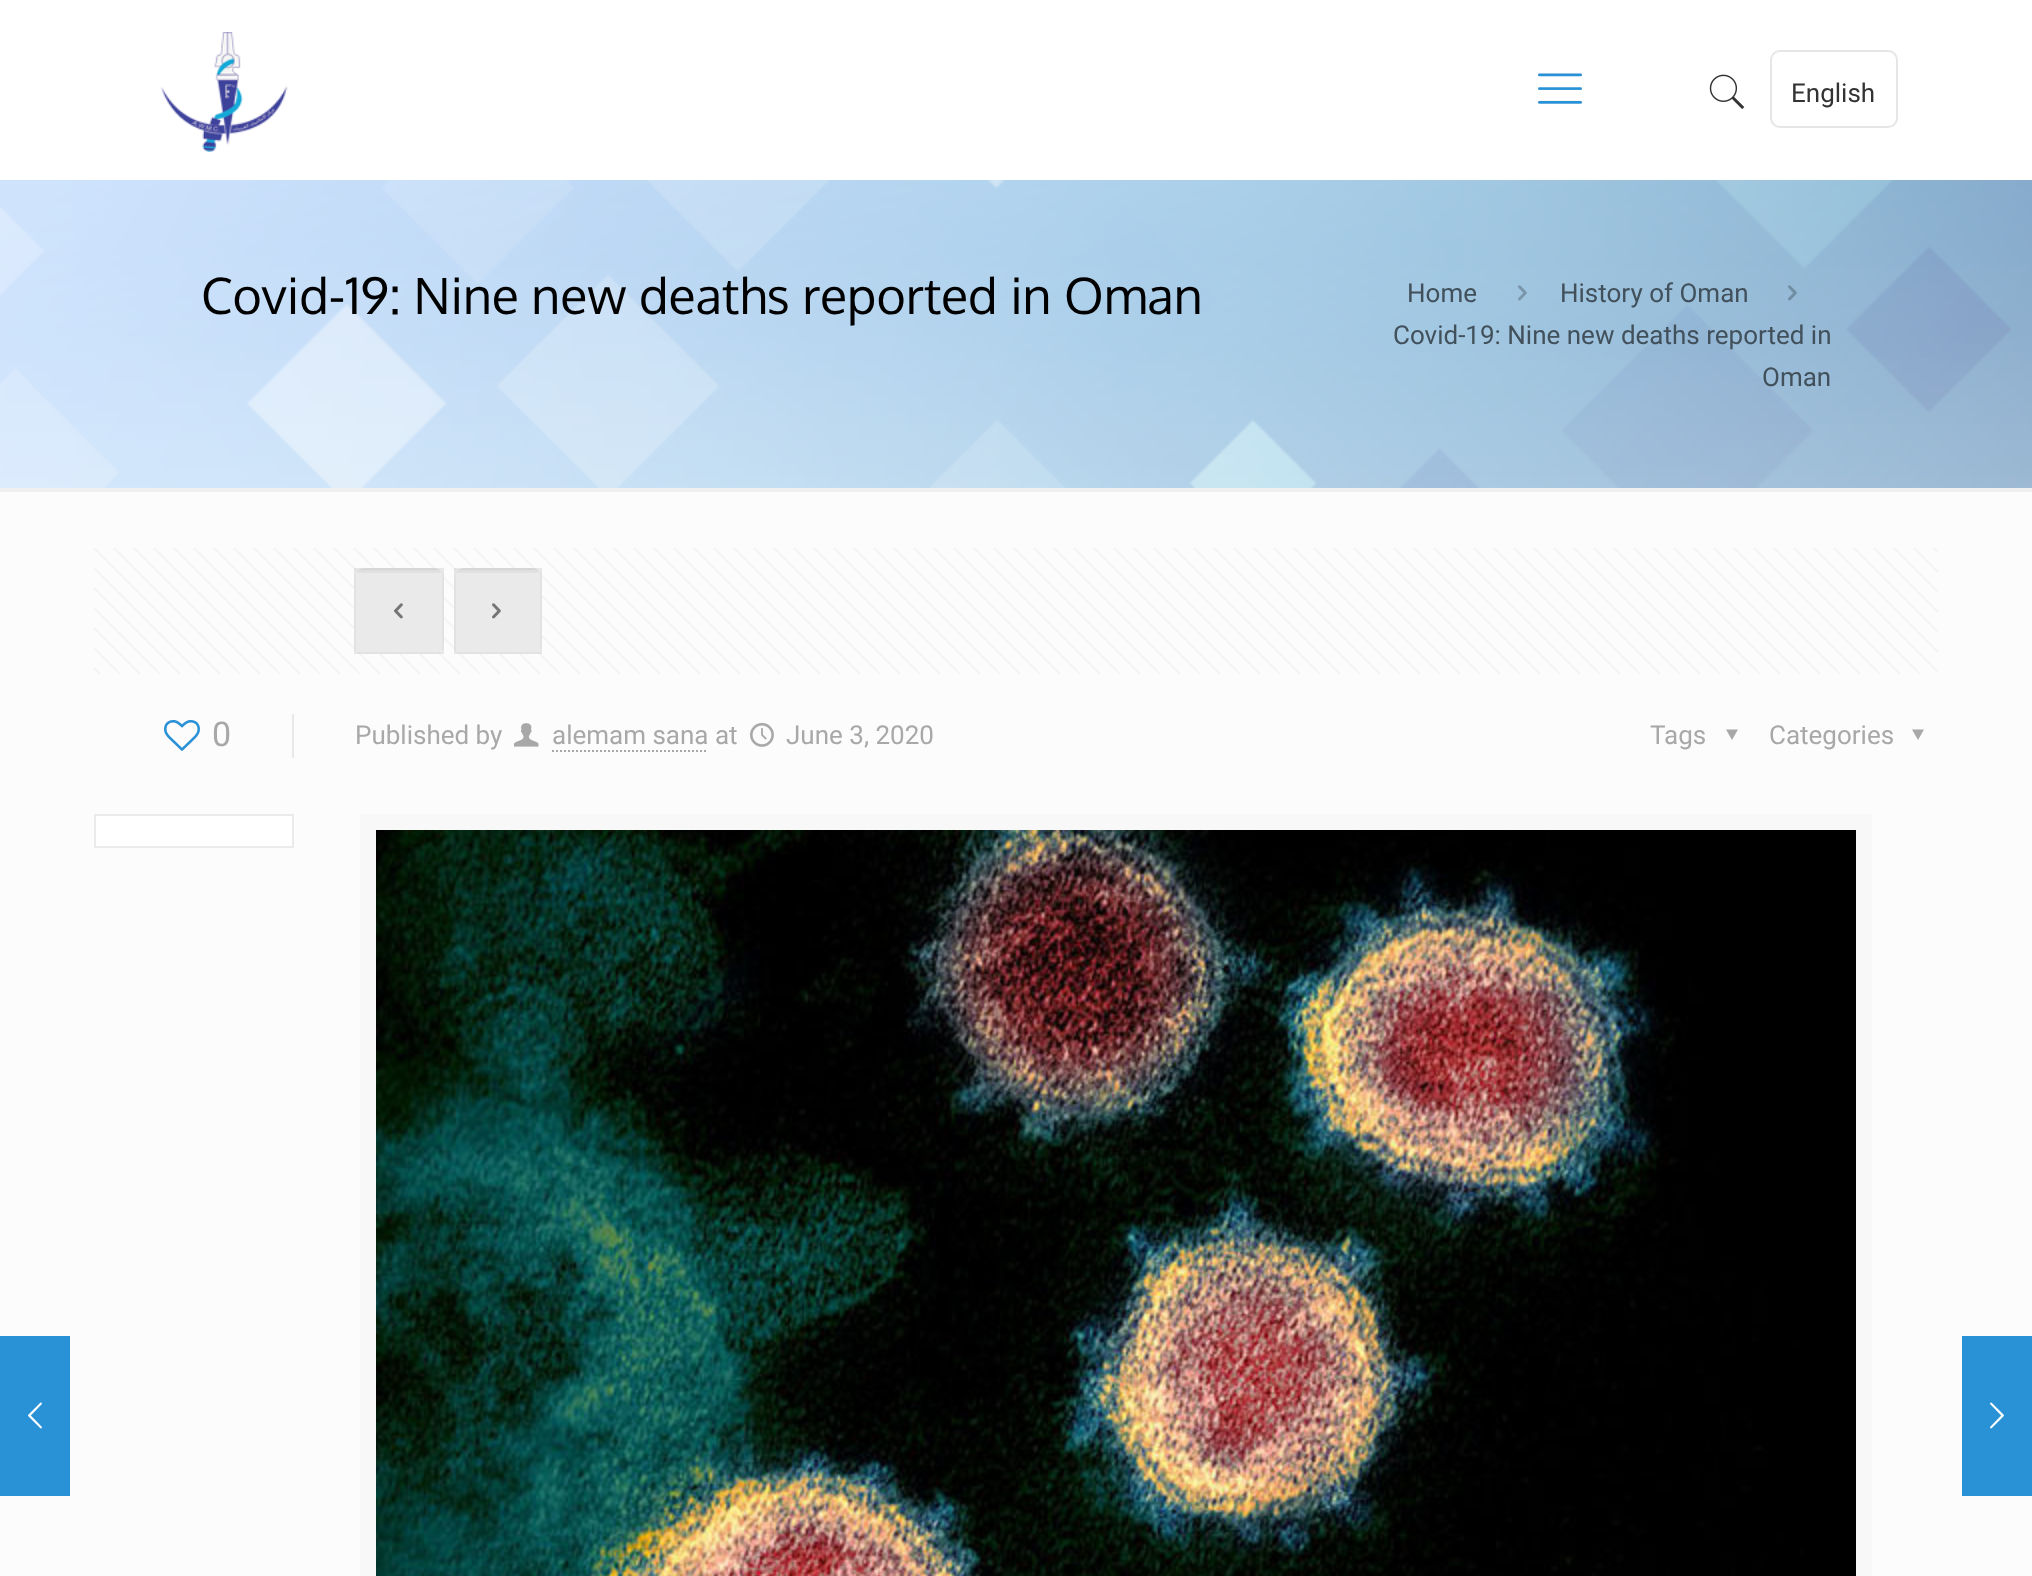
<!DOCTYPE html>
<meta charset="utf-8">
<style>body { margin: 0 } canvas { display: block }</style>
<canvas id="canvas" width="2032" height="1576"></canvas>
<script type="module">
  const canvas = document.getElementById("canvas");
  const ctx = canvas.getContext("2d");
  ctx.miterLimit = 4;
  ctx.fontKerning = "normal";
  async function loadImage(src) {
    const img = new Image();
    img.src = src;
    await img.decode();
    return img;
  }

  ctx.fillStyle = "#fcfcfc";
  ctx.fillRect(0, 0, 2032, 1576);
  ctx.fillStyle = "#ffffff";
  ctx.fillRect(0, 0, 2032, 180);
  ctx.drawImage(await loadImage("img1.png"), 160, 32, 128, 120);
  ctx.drawImage(await loadImage("img2.png"), 1538, 73, 44, 31);
  ctx.drawImage(await loadImage("img3.png"), 1709, 74, 36, 36);
  ctx.beginPath();
  ctx.roundRect(1771, 51, 126, 76, 9);
  ctx.strokeStyle = "#e6e6e6";
  ctx.lineWidth = 2;
  ctx.stroke();
  ctx.font = "26px Roboto";
  ctx.fillStyle = "#333333";
  ctx.fillText("English", 1791, 102);
  ctx.drawImage(await loadImage("img4.png"), 0, 180, 2032, 308);
  ctx.font = "50px Oxygen";
  ctx.fillStyle = "#000000";
  ctx.fillText("Covid-19: Nine new deaths reported in Oman", 201, 314);
  ctx.font = "26px Roboto";
  ctx.fillStyle = "#41505a";
  ctx.fillText("Home", 1407, 302);
  ctx.drawImage(await loadImage("img5.png"), 1518, 285, 9, 16);
  ctx.fillText("History of Oman", 1560, 302);
  ctx.drawImage(await loadImage("img6.png"), 1788, 285, 9, 16);
  ctx.fillText("Covid-19: Nine new deaths reported in", 1393, 344);
  ctx.fillText("Oman", 1762, 386);
  ctx.fillStyle = "#efefef";
  ctx.fillRect(0, 488, 2032, 4);
  ctx.drawImage(await loadImage("img7.png"), 94, 548, 1844, 126);
  ctx.fillStyle = "#f7f7f7";
  ctx.beginPath();
  ctx.roundRect(354, 568, 90, 86, 10);
  ctx.fill();
  ctx.drawImage(await loadImage("img8.png"), 356, 568, 86, 5);
  ctx.strokeStyle = "rgba(0, 0, 0, 0.03)";
  ctx.strokeRect(355, 569, 88, 84);
  ctx.fillStyle = "rgba(0, 0, 0, 0.05)";
  ctx.fillRect(354, 568, 90, 86);
  ctx.drawImage(await loadImage("img9.png"), 394, 603, 9, 16);
  ctx.fillStyle = "#f7f7f7";
  ctx.beginPath();
  ctx.roundRect(454, 568, 88, 86, 10);
  ctx.fill();
  ctx.drawImage(await loadImage("img10.png"), 456, 568, 84, 5);
  ctx.strokeRect(455, 569, 86, 84);
  ctx.fillStyle = "rgba(0, 0, 0, 0.05)";
  ctx.fillRect(454, 568, 88, 86);
  ctx.drawImage(await loadImage("img11.png"), 492, 603, 9, 16);
  ctx.drawImage(await loadImage("img12.png"), 164, 720, 36, 31);
  ctx.font = "34px Roboto";
  ctx.fillStyle = "#a8a8a8";
  ctx.fillText("0", 212, 746);
  ctx.fillStyle = "#e8e8e8";
  ctx.fillRect(292, 714, 2, 44);
  ctx.font = "26px Roboto";
  ctx.fillStyle = "#a8a8a8";
  ctx.fillText("Published by", 355, 744);
  ctx.drawImage(await loadImage("img13.png"), 514, 723, 25, 24);
  ctx.fillText("alemam sana at", 552, 744);
  ctx.beginPath();
  ctx.moveTo(552, 751);
  ctx.lineTo(708, 751);
  ctx.strokeStyle = "#a8a8a8";
  ctx.setLineDash([2, 2]);
  ctx.stroke();
  ctx.drawImage(await loadImage("img14.png"), 750, 723, 24, 24);
  ctx.fillText("June 3, 2020", 786, 744);
  ctx.fillText("Tags", 1650, 744);
  ctx.beginPath();
  ctx.moveTo(1738, 729.5);
  ctx.lineTo(1732, 740);
  ctx.lineTo(1726, 729.5);
  ctx.closePath();
  ctx.fill();
  ctx.fillText("Categories", 1769, 744);
  ctx.beginPath();
  ctx.moveTo(1924, 729.5);
  ctx.lineTo(1918, 740);
  ctx.lineTo(1912, 729.5);
  ctx.closePath();
  ctx.fill();
  ctx.fillStyle = "#ffffff";
  ctx.beginPath();
  ctx.rect(95, 815, 198, 32);
  ctx.fill();
  ctx.strokeStyle = "#ebebeb";
  ctx.setLineDash([]);
  ctx.stroke();
  ctx.strokeStyle = "#f8f8f8";
  ctx.lineWidth = 16;
  ctx.strokeRect(368, 822, 1496, 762);
  ctx.drawImage(await loadImage("img15.png"), 376, 830, 1480, 746);
  ctx.fillStyle = "#2991d6";
  ctx.fillRect(0, 1336, 70, 160);
  ctx.drawImage(await loadImage("img16.png"), 28, 1402, 14, 27);
  ctx.fillRect(1962, 1336, 70, 160);
  ctx.drawImage(await loadImage("img17.png"), 1990, 1402, 14, 27);
</script>
